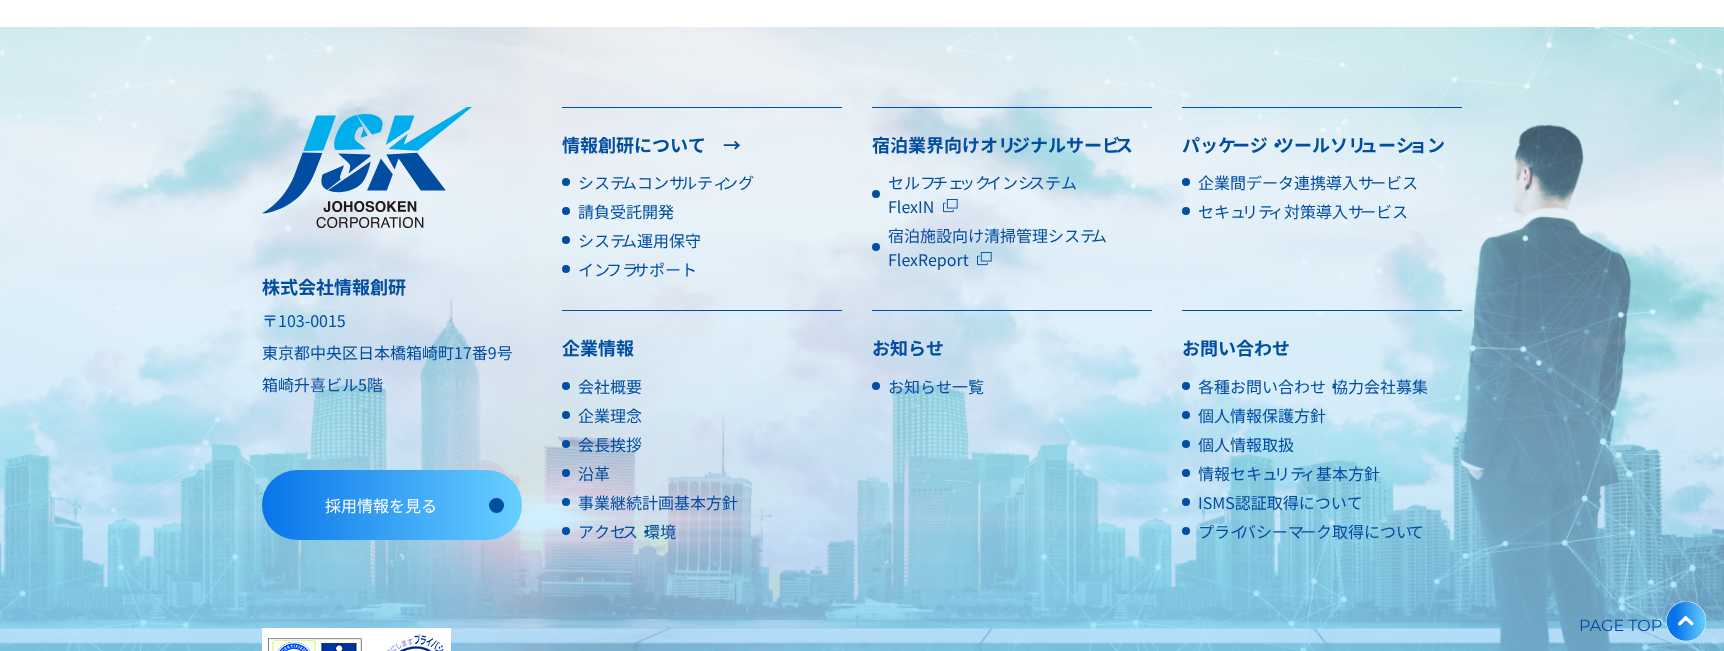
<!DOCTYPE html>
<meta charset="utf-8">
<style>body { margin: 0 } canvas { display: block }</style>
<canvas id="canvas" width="1724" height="651"></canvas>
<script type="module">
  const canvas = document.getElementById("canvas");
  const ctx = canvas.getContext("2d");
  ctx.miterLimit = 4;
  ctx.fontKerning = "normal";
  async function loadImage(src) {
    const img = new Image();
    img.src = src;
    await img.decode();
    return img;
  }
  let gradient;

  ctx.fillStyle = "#ffffff";
  ctx.fillRect(0, 0, 1724, 651);
  ctx.drawImage(await loadImage("img1.png"), 0, 27, 1724, 624);
  ctx.drawImage(await loadImage("img2.png"), 262, 107, 210, 121);
  ctx.font = "bold 18px Noto Sans JP";
  ctx.fillStyle = "#004da1";
  ctx.fillText("株式会社情報創研", 262, 294);
  ctx.font = "16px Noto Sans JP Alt";
  ctx.fillText("〒103-0015", 262, 327);
  ctx.font = "16px Noto Sans JP";
  ctx.fillText("東京都中央区日本橋箱崎町17番9号", 262, 359);
  ctx.fillText("箱崎升喜ビル5階", 262, 391);
  gradient = ctx.createLinearGradient(262, 505, 782, 505);
  gradient.addColorStop(0, "#0874e9");
  gradient.addColorStop(0.5, "#68d0ff");
  gradient.addColorStop(0.5, "#ffffff");
  gradient.addColorStop(1, "#ffffff");
  ctx.fillStyle = gradient;
  ctx.beginPath();
  ctx.roundRect(262, 470, 260, 70, 35);
  ctx.fill();
  ctx.fillStyle = "#ffffff";
  ctx.fillText("採用情報を見る", 325, 512);
  ctx.fillStyle = "#004da1";
  ctx.beginPath();
  ctx.arc(496.5, 505.5, 7.5, 0, Math.PI * 2);
  ctx.fill();
  ctx.drawImage(await loadImage("img3.png"), 503, 504, 1, 3);
  ctx.fillRect(562, 107, 280, 1);
  ctx.font = "bold 18px Noto Sans JP";
  ctx.fillText("情報創研について", 562, 152);
  ctx.fillText("→", 723, 152);
  ctx.beginPath();
  ctx.arc(566, 182, 4, 0, Math.PI * 2);
  ctx.fill();
  ctx.font = "16px Noto Sans JP";
  ctx.fillText("システ", 578, 189);
  ctx.fillText("ムコンサ", 621, 189);
  ctx.fillText("ルティ", 681, 189);
  ctx.fillText("ング", 722, 189);
  ctx.beginPath();
  ctx.arc(566, 211, 4, 0, Math.PI * 2);
  ctx.fill();
  ctx.fillText("請負受託開発", 578, 218);
  ctx.beginPath();
  ctx.arc(566, 240, 4, 0, Math.PI * 2);
  ctx.fill();
  ctx.fillText("システ", 578, 247);
  ctx.fillText("ム運用保守", 621, 247);
  ctx.beginPath();
  ctx.arc(566, 269, 4, 0, Math.PI * 2);
  ctx.fill();
  ctx.fillText("イン", 578, 276);
  ctx.fillText("フラ", 606, 276);
  ctx.fillText("サポート", 633, 276);
  ctx.fillRect(872, 107, 280, 1);
  ctx.font = "bold 18px Noto Sans JP";
  ctx.fillText("宿泊業界向けオリ", 872, 152);
  ctx.fillText("ジナルサービ", 1012, 152);
  ctx.fillText("ス", 1115, 152);
  ctx.font = "16px Noto Sans JP";
  ctx.fillText("セルフ", 888, 189);
  ctx.fillText("チェ", 932, 189);
  ctx.fillText("ック", 959, 189);
  ctx.fillText("インシ", 986, 189);
  ctx.fillText("ステム", 1029, 189);
  ctx.beginPath();
  ctx.arc(876, 194, 4, 0, Math.PI * 2);
  ctx.fill();
  ctx.fillText("FlexIN", 888, 213);
  ctx.drawImage(await loadImage("img4.png"), 943, 199, 15, 14);
  ctx.fillText("宿泊施設向け清掃管理システ", 888, 242);
  ctx.fillText("ム", 1091, 242);
  ctx.beginPath();
  ctx.arc(876, 247, 4, 0, Math.PI * 2);
  ctx.fill();
  ctx.fillText("FlexReport", 888, 266);
  ctx.drawImage(await loadImage("img5.png"), 977, 252, 15, 14);
  ctx.fillRect(1182, 107, 280, 1);
  ctx.font = "bold 18px Noto Sans JP";
  ctx.fillText("パッケ", 1182, 152);
  ctx.fillText("ージ・", 1232, 152);
  ctx.fillText("ツールソリ", 1276, 152);
  ctx.fillText("ューシ", 1360, 152);
  ctx.fillText("ョン", 1409, 152);
  ctx.beginPath();
  ctx.arc(1186, 182, 4, 0, Math.PI * 2);
  ctx.fill();
  ctx.font = "16px Noto Sans JP";
  ctx.fillText("企業間データ連携導入サ", 1198, 189);
  ctx.fillText("ービス", 1370, 189);
  ctx.beginPath();
  ctx.arc(1186, 211, 4, 0, Math.PI * 2);
  ctx.fill();
  ctx.fillText("セキュ", 1198, 218);
  ctx.fillText("リテ", 1242, 218);
  ctx.fillText("ィ対策導入サ", 1268, 218);
  ctx.fillText("ービス", 1360, 218);
  ctx.fillRect(562, 310, 280, 1);
  ctx.font = "bold 18px Noto Sans JP";
  ctx.fillText("企業情報", 562, 355);
  ctx.beginPath();
  ctx.arc(566, 386, 4, 0, Math.PI * 2);
  ctx.fill();
  ctx.font = "16px Noto Sans JP";
  ctx.fillText("会社概要", 578, 393);
  ctx.beginPath();
  ctx.arc(566, 415, 4, 0, Math.PI * 2);
  ctx.fill();
  ctx.fillText("企業理念", 578, 422);
  ctx.beginPath();
  ctx.arc(566, 444, 4, 0, Math.PI * 2);
  ctx.fill();
  ctx.fillText("会長挨拶", 578, 451);
  ctx.beginPath();
  ctx.arc(566, 473, 4, 0, Math.PI * 2);
  ctx.fill();
  ctx.fillText("沿革", 578, 480);
  ctx.beginPath();
  ctx.arc(566, 502, 4, 0, Math.PI * 2);
  ctx.fill();
  ctx.fillText("事業継続計画基本方針", 578, 509);
  ctx.beginPath();
  ctx.arc(566, 531, 4, 0, Math.PI * 2);
  ctx.fill();
  ctx.fillText("アクセ", 578, 538);
  ctx.fillText("ス・", 622, 538);
  ctx.fillText("環境", 644, 538);
  ctx.fillRect(872, 310, 280, 1);
  ctx.font = "bold 18px Noto Sans JP";
  ctx.fillText("お知らせ", 872, 355);
  ctx.beginPath();
  ctx.arc(876, 386, 4, 0, Math.PI * 2);
  ctx.fill();
  ctx.font = "16px Noto Sans JP";
  ctx.fillText("お知らせ一覧", 888, 393);
  ctx.fillRect(1182, 310, 280, 1);
  ctx.font = "bold 18px Noto Sans JP";
  ctx.fillText("お問い合わせ", 1182, 355);
  ctx.beginPath();
  ctx.arc(1186, 386, 4, 0, Math.PI * 2);
  ctx.fill();
  ctx.font = "16px Noto Sans JP";
  ctx.fillText("各種お問い合わせ・", 1198, 393);
  ctx.fillText("協力会社募集", 1332, 393);
  ctx.beginPath();
  ctx.arc(1186, 415, 4, 0, Math.PI * 2);
  ctx.fill();
  ctx.fillText("個人情報保護方針", 1198, 422);
  ctx.beginPath();
  ctx.arc(1186, 444, 4, 0, Math.PI * 2);
  ctx.fill();
  ctx.fillText("個人情報取扱", 1198, 451);
  ctx.beginPath();
  ctx.arc(1186, 473, 4, 0, Math.PI * 2);
  ctx.fill();
  ctx.fillText("情報セキュ", 1198, 480);
  ctx.fillText("リテ", 1274, 480);
  ctx.fillText("ィ基本方針", 1300, 480);
  ctx.beginPath();
  ctx.arc(1186, 502, 4, 0, Math.PI * 2);
  ctx.fill();
  ctx.fillText("ISMS認証取得について", 1198, 509);
  ctx.beginPath();
  ctx.arc(1186, 531, 4, 0, Math.PI * 2);
  ctx.fill();
  ctx.fillText("プライ", 1198, 538);
  ctx.fillText("バシーマ", 1240, 538);
  ctx.fillText("ーク取得につい", 1300, 538);
  ctx.fillText("て", 1408, 538);
  ctx.drawImage(await loadImage("img6.png"), 262, 628, 106, 23);
  ctx.drawImage(await loadImage("img7.png"), 368, 628, 83, 23);
  ctx.font = "16px Montserrat";
  ctx.fillText("PAGE TOP", 1579, 631);
  ctx.drawImage(await loadImage("img8.png"), 1666, 601, 40, 40);
</script>
